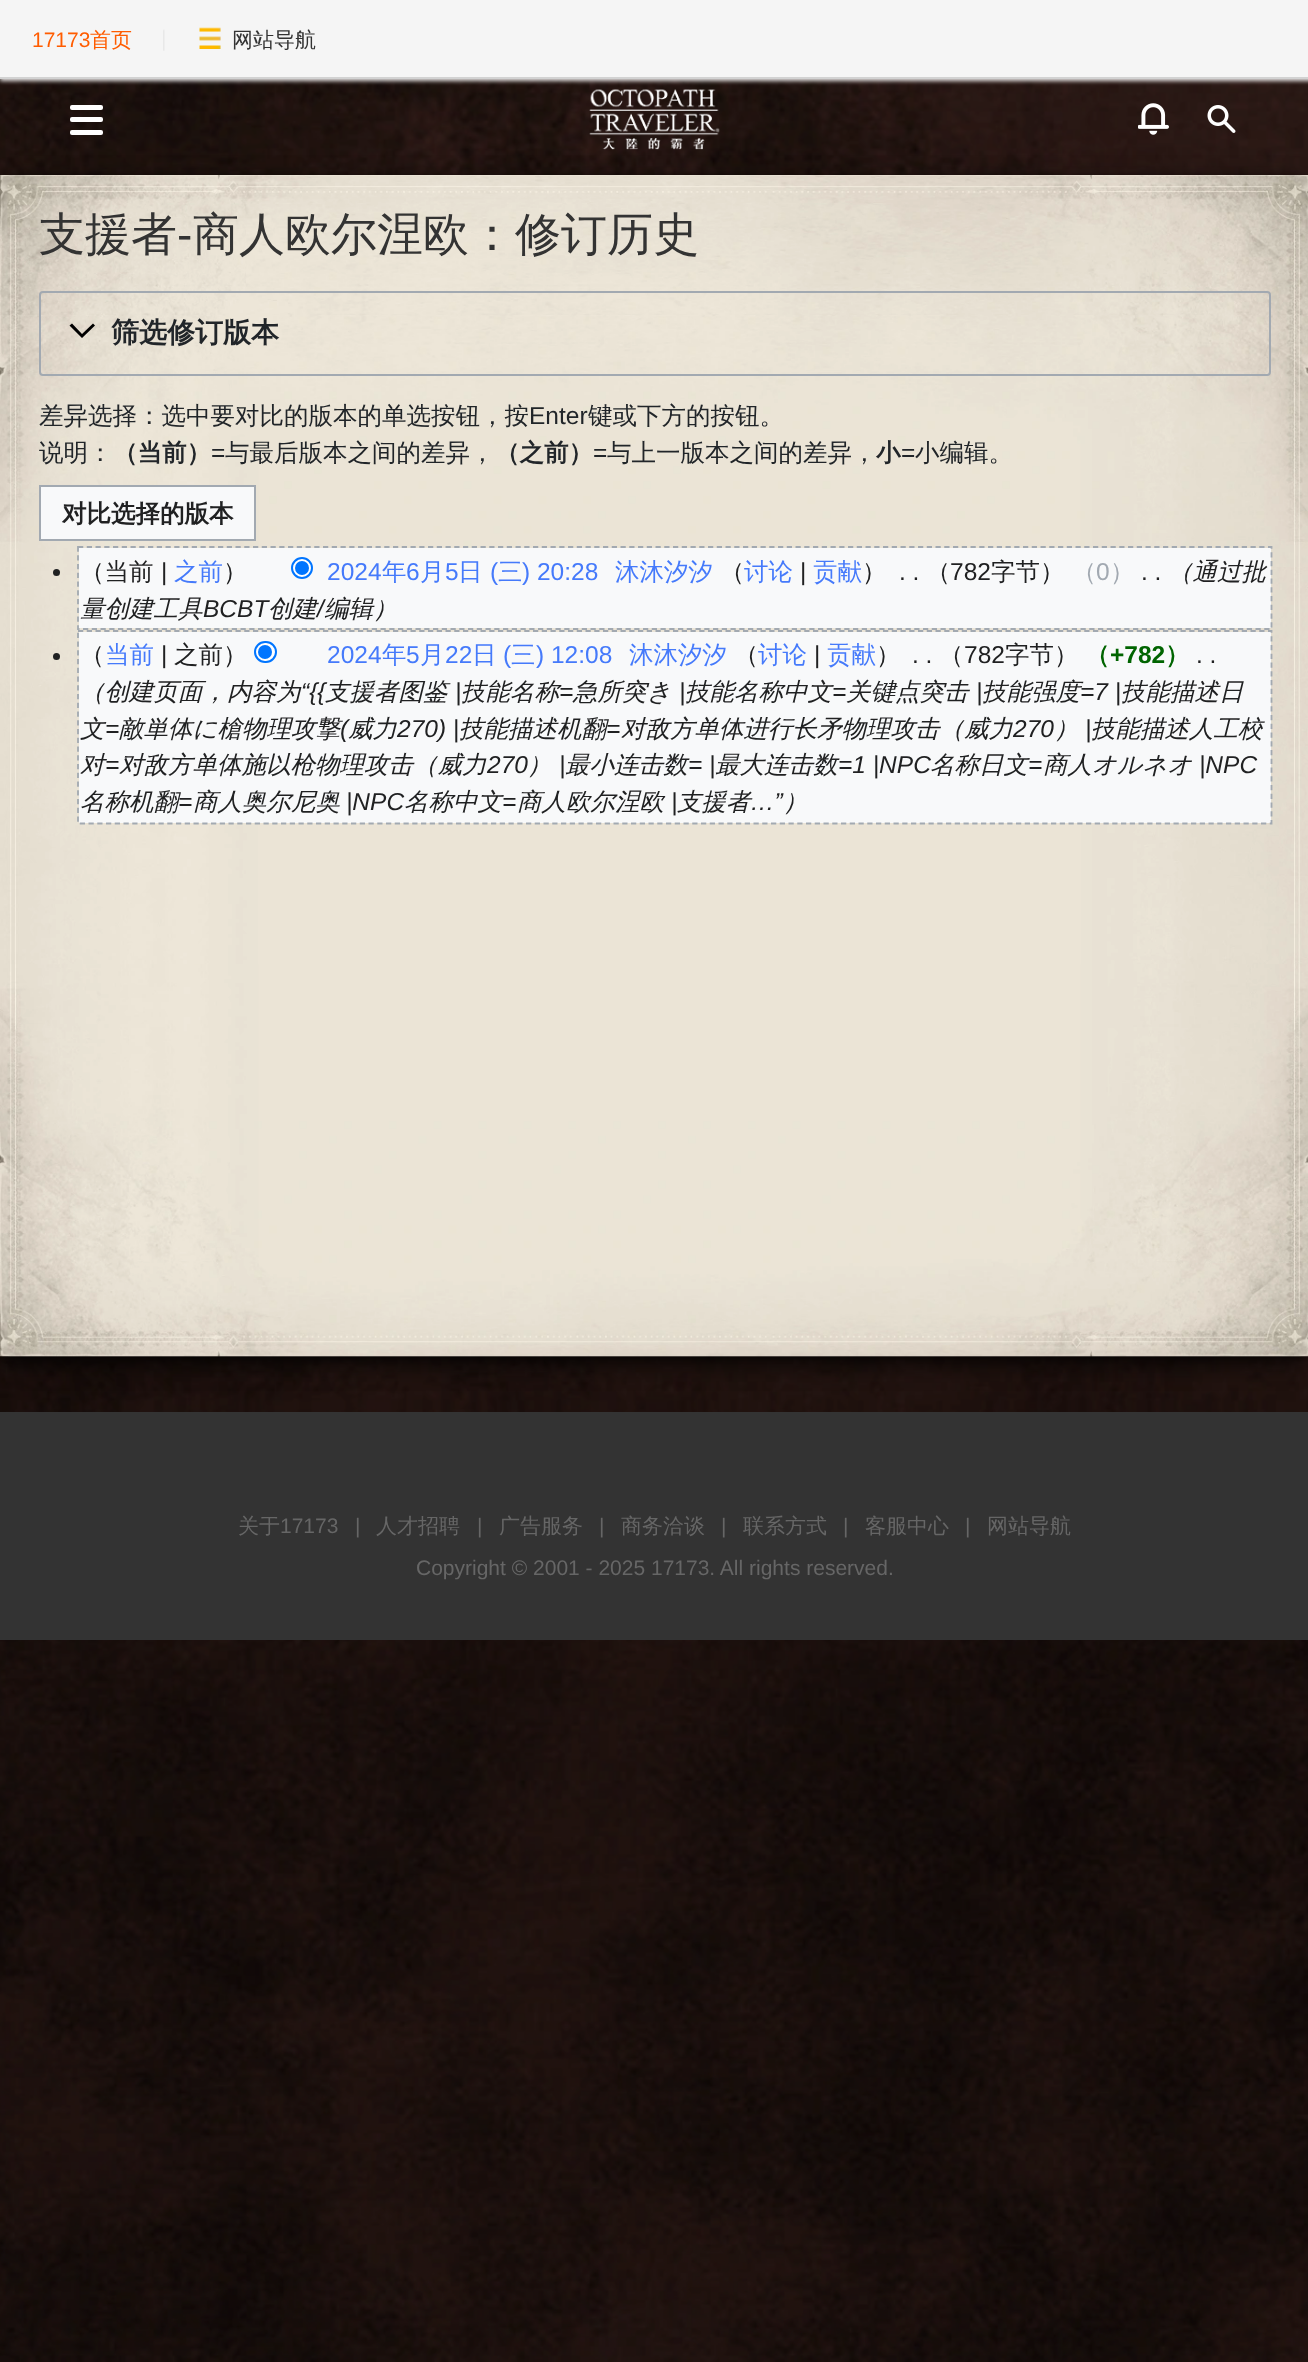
<!DOCTYPE html>
<meta charset="utf-8">
<style>body { margin: 0 } canvas { display: block }</style>
<canvas id="canvas" width="1308" height="2362"></canvas>
<script type="module">
  const canvas = document.getElementById("canvas");
  const ctx = canvas.getContext("2d");
  ctx.miterLimit = 4;
  ctx.fontKerning = "normal";
  async function loadImage(src) {
    const img = new Image();
    img.src = src;
    await img.decode();
    return img;
  }

  ctx.fillStyle = "#ffffff";
  ctx.fillRect(0, 0, 1308, 2362);
  ctx.drawImage(await loadImage("img1.png"), 0, 79, 1308, 2283);
  ctx.fillStyle = "#e8e6e6";
  ctx.filter = "blur(2px)";
  ctx.beginPath();
  ctx.rect(0, 2, 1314, 79);
  ctx.fill();
  ctx.filter = "none";
  ctx.fillStyle = "#f5f5f5";
  ctx.fillRect(0, 0, 1308, 77);
  ctx.fillStyle = "#d2d2d2";
  ctx.fillRect(0, 77, 1308, 2);
  ctx.font = "21px Liberation Sans";
  ctx.fillStyle = "#ff5c00";
  ctx.fillText("17173", 32, 47);
  ctx.font = "500 21px WenQuanYi Zen Hei";
  ctx.fillText("首页", 90, 47);
  ctx.drawImage(await loadImage("img2.png"), 163, 29, 2, 22);
  ctx.drawImage(await loadImage("img3.png"), 199, 27, 22, 22);
  ctx.fillStyle = "#333333";
  ctx.fillText("网站导航", 232, 47);
  ctx.fillStyle = "#ffffff";
  ctx.beginPath();
  ctx.roundRect(70, 105, 33, 5, 2);
  ctx.fill();
  ctx.beginPath();
  ctx.roundRect(70, 117, 33, 5, 2);
  ctx.fill();
  ctx.beginPath();
  ctx.roundRect(70, 130, 33, 5, 2);
  ctx.fill();
  ctx.drawImage(await loadImage("img4.png"), 589, 89, 131, 61);
  ctx.drawImage(await loadImage("img5.png"), 1138, 103, 31, 32);
  ctx.drawImage(await loadImage("img6.png"), 1207, 105, 29, 28);
  ctx.fillStyle = "rgba(0, 0, 0, 0.8)";
  ctx.filter = "blur(3.5px)";
  ctx.beginPath();
  ctx.roundRect(4, 182, 1302, 1174, 7);
  ctx.fill();
  ctx.filter = "none";
  ctx.filter = "blur(12px)";
  ctx.beginPath();
  ctx.roundRect(2, 184, 1305, 1178, 9);
  ctx.fill();
  ctx.filter = "none";
  ctx.drawImage(await loadImage("img7.png"), 0, 567, 1308, 790);
  ctx.drawImage(await loadImage("img8.png"), 0, 175, 1308, 1182);
  ctx.font = "500 46px WenQuanYi Zen Hei";
  ctx.fillStyle = "#333333";
  ctx.fillText("支援者", 39, 250);
  ctx.font = "46px Liberation Sans";
  ctx.fillText("-", 177, 250);
  ctx.font = "500 46px WenQuanYi Zen Hei";
  ctx.fillText("商人欧尔涅欧：修订历史", 193, 250);
  ctx.beginPath();
  ctx.roundRect(40, 292, 1230, 83, 3);
  ctx.strokeStyle = "#a2a9b1";
  ctx.lineWidth = 2;
  ctx.stroke();
  ctx.fillStyle = "#000000";
  ctx.beginPath();
  ctx.moveTo(93, 323.5);
  ctx.lineTo(82, 334);
  ctx.lineTo(72, 323.5);
  ctx.lineTo(69.5, 325.5);
  ctx.lineTo(82, 338);
  ctx.lineTo(95, 325.5);
  ctx.closePath();
  ctx.fill();
  ctx.font = "bold 28px WenQuanYi Zen Hei";
  ctx.fillStyle = "#212529";
  ctx.fillText("筛选修订版本", 111, 342);
  ctx.font = "500 24.5px WenQuanYi Zen Hei";
  ctx.fillText("差异选择：选中要对比的版本的单选按钮，按", 39, 424);
  ctx.font = "24.5px Liberation Sans";
  ctx.fillText("Enter", 529, 424);
  ctx.font = "500 24.5px WenQuanYi Zen Hei";
  ctx.fillText("键或下方的按钮。", 588, 424);
  ctx.fillText("说明：", 39, 461);
  ctx.font = "bold 24.5px WenQuanYi Zen Hei";
  ctx.fillText("（当前）", 113, 461);
  ctx.font = "24.5px Liberation Sans";
  ctx.fillText("=", 211, 461);
  ctx.font = "500 24.5px WenQuanYi Zen Hei";
  ctx.fillText("与最后版本之间的差异，", 225, 461);
  ctx.font = "bold 24.5px WenQuanYi Zen Hei";
  ctx.fillText("（之前）", 495, 461);
  ctx.font = "24.5px Liberation Sans";
  ctx.fillText("=", 593, 461);
  ctx.font = "500 24.5px WenQuanYi Zen Hei";
  ctx.fillText("与上一版本之间的差异，", 607, 461);
  ctx.font = "bold 24.5px WenQuanYi Zen Hei";
  ctx.fillText("小", 876, 461);
  ctx.font = "24.5px Liberation Sans";
  ctx.fillText("=", 901, 461);
  ctx.font = "500 24.5px WenQuanYi Zen Hei";
  ctx.fillText("小编辑。", 915, 461);
  ctx.fillStyle = "#f8f9fa";
  ctx.beginPath();
  ctx.rect(40, 486, 215, 54);
  ctx.fill();
  ctx.stroke();
  ctx.font = "bold 24.5px WenQuanYi Zen Hei";
  ctx.fillStyle = "#202122";
  ctx.fillText("对比选择的版本", 62, 522);
  ctx.fillStyle = "#f8f9fa";
  ctx.fillRect(79, 548, 1192, 80);
  ctx.font = "500 24.5px WenQuanYi Zen Hei";
  ctx.fillStyle = "#202122";
  ctx.fillText("（当前", 80, 580);
  ctx.font = "24.5px Liberation Sans";
  ctx.fillText("|", 161, 580);
  ctx.font = "500 24.5px WenQuanYi Zen Hei";
  ctx.fillStyle = "#457afb";
  ctx.fillText("之前", 174, 580);
  ctx.fillStyle = "#202122";
  ctx.fillText("）", 223, 580);
  ctx.fillStyle = "#ffffff";
  ctx.beginPath();
  ctx.arc(302, 568, 10, 0, Math.PI * 2);
  ctx.fill();
  ctx.strokeStyle = "#0075ff";
  ctx.stroke();
  ctx.fillStyle = "#0075ff";
  ctx.beginPath();
  ctx.arc(302, 568, 7, 0, Math.PI * 2);
  ctx.fill();
  ctx.font = "24.5px Liberation Sans";
  ctx.fillStyle = "#457afb";
  ctx.fillText("2024", 327, 580);
  ctx.font = "500 24.5px WenQuanYi Zen Hei";
  ctx.fillText("年", 382, 580);
  ctx.font = "24.5px Liberation Sans";
  ctx.fillText("6", 406, 580);
  ctx.font = "500 24.5px WenQuanYi Zen Hei";
  ctx.fillText("月", 420, 580);
  ctx.font = "24.5px Liberation Sans";
  ctx.fillText("5", 445, 580);
  ctx.font = "500 24.5px WenQuanYi Zen Hei";
  ctx.fillText("日", 458, 580);
  ctx.font = "24.5px Liberation Sans";
  ctx.fillText("(", 490, 580);
  ctx.font = "500 24.5px WenQuanYi Zen Hei";
  ctx.fillText("三", 498, 580);
  ctx.font = "24.5px Liberation Sans";
  ctx.fillText(") 20:28", 522, 580);
  ctx.font = "500 24.5px WenQuanYi Zen Hei";
  ctx.fillText("沐沐汐汐", 615, 580);
  ctx.fillStyle = "#202122";
  ctx.fillText("（", 720, 580);
  ctx.fillStyle = "#457afb";
  ctx.fillText("讨论", 744, 580);
  ctx.font = "24.5px Liberation Sans";
  ctx.fillStyle = "#202122";
  ctx.fillText("|", 800, 580);
  ctx.font = "500 24.5px WenQuanYi Zen Hei";
  ctx.fillStyle = "#457afb";
  ctx.fillText("贡献", 813, 580);
  ctx.fillStyle = "#202122";
  ctx.fillText("）", 862, 580);
  ctx.fillText("（", 926, 580);
  ctx.font = "24.5px Liberation Sans";
  ctx.fillText("782", 950, 580);
  ctx.font = "500 24.5px WenQuanYi Zen Hei";
  ctx.fillText("字节）", 991, 580);
  ctx.font = "italic 500 24.5px WenQuanYi Zen Hei";
  ctx.fillText("（通过批", 1168, 580);
  ctx.font = "24.5px Liberation Sans";
  ctx.fillText(". .", 899, 580);
  ctx.fillText(". .", 1141, 580);
  ctx.font = "italic 500 24.5px WenQuanYi Zen Hei";
  ctx.fillText("量创建工具", 80, 617);
  ctx.font = "italic 24.5px Liberation Sans";
  ctx.fillText("BCBT", 203, 617);
  ctx.font = "italic 500 24.5px WenQuanYi Zen Hei";
  ctx.fillText("创建", 268, 617);
  ctx.font = "italic 24.5px Liberation Sans";
  ctx.fillText("/", 317, 617);
  ctx.font = "italic 500 24.5px WenQuanYi Zen Hei";
  ctx.fillText("编辑）", 324, 617);
  ctx.beginPath();
  ctx.moveTo(78, 547);
  ctx.lineTo(1271.5, 547);
  ctx.lineTo(1271.5, 629);
  ctx.lineTo(78, 629);
  ctx.closePath();
  ctx.strokeStyle = "#a2a9b1";
  ctx.lineWidth = 1.8;
  ctx.setLineDash([5.25, 3.5]);
  ctx.stroke();
  ctx.beginPath();
  ctx.arc(56.5, 572.5, 3.5, 0, Math.PI * 2);
  ctx.fill();
  ctx.font = "500 24.5px WenQuanYi Zen Hei";
  ctx.fillStyle = "#a2a9b1";
  ctx.fillText("（", 1072, 580);
  ctx.font = "24.5px Liberation Sans";
  ctx.fillText("0", 1096, 580);
  ctx.font = "500 24.5px WenQuanYi Zen Hei";
  ctx.fillText("）", 1110, 580);
  ctx.fillStyle = "#f8f9fa";
  ctx.fillRect(79, 632, 1192, 191);
  ctx.fillStyle = "#202122";
  ctx.fillText("（", 80, 663);
  ctx.fillStyle = "#457afb";
  ctx.fillText("当前", 105, 663);
  ctx.font = "24.5px Liberation Sans";
  ctx.fillStyle = "#202122";
  ctx.fillText("|", 161, 663);
  ctx.font = "500 24.5px WenQuanYi Zen Hei";
  ctx.fillText("之前）", 174, 663);
  ctx.fillStyle = "#ffffff";
  ctx.beginPath();
  ctx.roundRect(255, 642, 21, 20, 10);
  ctx.fill();
  ctx.strokeStyle = "#0075ff";
  ctx.lineWidth = 2;
  ctx.setLineDash([]);
  ctx.stroke();
  ctx.fillStyle = "#0075ff";
  ctx.beginPath();
  ctx.arc(265, 652, 7, 0, Math.PI * 2);
  ctx.fill();
  ctx.font = "24.5px Liberation Sans";
  ctx.fillStyle = "#457afb";
  ctx.fillText("2024", 327, 663);
  ctx.font = "500 24.5px WenQuanYi Zen Hei";
  ctx.fillText("年", 382, 663);
  ctx.font = "24.5px Liberation Sans";
  ctx.fillText("5", 406, 663);
  ctx.font = "500 24.5px WenQuanYi Zen Hei";
  ctx.fillText("月", 420, 663);
  ctx.font = "24.5px Liberation Sans";
  ctx.fillText("22", 445, 663);
  ctx.font = "500 24.5px WenQuanYi Zen Hei";
  ctx.fillText("日", 472, 663);
  ctx.font = "24.5px Liberation Sans";
  ctx.fillText("(", 503, 663);
  ctx.font = "500 24.5px WenQuanYi Zen Hei";
  ctx.fillText("三", 511, 663);
  ctx.font = "24.5px Liberation Sans";
  ctx.fillText(") 12:08", 536, 663);
  ctx.font = "500 24.5px WenQuanYi Zen Hei";
  ctx.fillText("沐沐汐汐", 629, 663);
  ctx.fillStyle = "#202122";
  ctx.fillText("（", 734, 663);
  ctx.fillStyle = "#457afb";
  ctx.fillText("讨论", 758, 663);
  ctx.font = "24.5px Liberation Sans";
  ctx.fillStyle = "#202122";
  ctx.fillText("|", 814, 663);
  ctx.font = "500 24.5px WenQuanYi Zen Hei";
  ctx.fillStyle = "#457afb";
  ctx.fillText("贡献", 827, 663);
  ctx.fillStyle = "#202122";
  ctx.fillText("）", 876, 663);
  ctx.fillText("（", 939, 663);
  ctx.font = "24.5px Liberation Sans";
  ctx.fillText("782", 964, 663);
  ctx.font = "500 24.5px WenQuanYi Zen Hei";
  ctx.fillText("字节）", 1005, 663);
  ctx.font = "bold 24.5px WenQuanYi Zen Hei";
  ctx.fillStyle = "#006400";
  ctx.fillText("（", 1085, 663);
  ctx.font = "bold 24.5px Liberation Sans";
  ctx.fillText("+782", 1110, 663);
  ctx.font = "bold 24.5px WenQuanYi Zen Hei";
  ctx.fillText("）", 1165, 663);
  ctx.font = "24.5px Liberation Sans";
  ctx.fillStyle = "#202122";
  ctx.fillText(". .", 912, 663);
  ctx.fillText(". .", 1196, 663);
  ctx.font = "italic 500 24.5px WenQuanYi Zen Hei";
  ctx.fillText("（创建页面，内容为", 80, 700);
  ctx.font = "italic 24.5px Liberation Sans";
  ctx.fillText("“{{", 301, 700);
  ctx.font = "italic 500 24.5px WenQuanYi Zen Hei";
  ctx.fillText("支援者图鉴", 325, 700);
  ctx.font = "italic 24.5px Liberation Sans";
  ctx.fillText("|", 455, 700);
  ctx.font = "italic 500 24.5px WenQuanYi Zen Hei";
  ctx.fillText("技能名称", 461, 700);
  ctx.font = "italic 24.5px Liberation Sans";
  ctx.fillText("=", 559, 700);
  ctx.font = "italic 500 24.5px WenQuanYi Zen Hei";
  ctx.fillText("急所突き", 573, 700);
  ctx.font = "italic 24.5px Liberation Sans";
  ctx.fillText("|", 679, 700);
  ctx.font = "italic 500 24.5px WenQuanYi Zen Hei";
  ctx.fillText("技能名称中文", 685, 700);
  ctx.font = "italic 24.5px Liberation Sans";
  ctx.fillText("=", 832, 700);
  ctx.font = "italic 500 24.5px WenQuanYi Zen Hei";
  ctx.fillText("关键点突击", 846, 700);
  ctx.font = "italic 24.5px Liberation Sans";
  ctx.fillText("|", 976, 700);
  ctx.font = "italic 500 24.5px WenQuanYi Zen Hei";
  ctx.fillText("技能强度", 982, 700);
  ctx.font = "italic 24.5px Liberation Sans";
  ctx.fillText("=7 |", 1080, 700);
  ctx.font = "italic 500 24.5px WenQuanYi Zen Hei";
  ctx.fillText("技能描述日", 1121, 700);
  ctx.fillText("文", 80, 737);
  ctx.font = "italic 24.5px Liberation Sans";
  ctx.fillText("=", 105, 737);
  ctx.font = "italic 500 24.5px WenQuanYi Zen Hei";
  ctx.fillText("敵単体に槍物理攻撃", 119, 737);
  ctx.font = "italic 24.5px Liberation Sans";
  ctx.fillText("(", 340, 737);
  ctx.font = "italic 500 24.5px WenQuanYi Zen Hei";
  ctx.fillText("威力", 348, 737);
  ctx.font = "italic 24.5px Liberation Sans";
  ctx.fillText("270) |", 397, 737);
  ctx.font = "italic 500 24.5px WenQuanYi Zen Hei";
  ctx.fillText("技能描述机翻", 459, 737);
  ctx.font = "italic 24.5px Liberation Sans";
  ctx.fillText("=", 606, 737);
  ctx.font = "italic 500 24.5px WenQuanYi Zen Hei";
  ctx.fillText("对敌方单体进行长矛物理攻击（威力", 621, 737);
  ctx.font = "italic 24.5px Liberation Sans";
  ctx.fillText("270", 1013, 737);
  ctx.font = "italic 500 24.5px WenQuanYi Zen Hei";
  ctx.fillText("）", 1054, 737);
  ctx.font = "italic 24.5px Liberation Sans";
  ctx.fillText("|", 1085, 737);
  ctx.font = "italic 500 24.5px WenQuanYi Zen Hei";
  ctx.fillText("技能描述人工校", 1091, 737);
  ctx.fillText("对", 80, 773);
  ctx.font = "italic 24.5px Liberation Sans";
  ctx.fillText("=", 105, 773);
  ctx.font = "italic 500 24.5px WenQuanYi Zen Hei";
  ctx.fillText("对敌方单体施以枪物理攻击（威力", 119, 773);
  ctx.font = "italic 24.5px Liberation Sans";
  ctx.fillText("270", 487, 773);
  ctx.font = "italic 500 24.5px WenQuanYi Zen Hei";
  ctx.fillText("）", 527, 773);
  ctx.font = "italic 24.5px Liberation Sans";
  ctx.fillText("|", 559, 773);
  ctx.font = "italic 500 24.5px WenQuanYi Zen Hei";
  ctx.fillText("最小连击数", 565, 773);
  ctx.font = "italic 24.5px Liberation Sans";
  ctx.fillText("= |", 688, 773);
  ctx.font = "italic 500 24.5px WenQuanYi Zen Hei";
  ctx.fillText("最大连击数", 715, 773);
  ctx.font = "italic 24.5px Liberation Sans";
  ctx.fillText("=1 |NPC", 838, 773);
  ctx.font = "italic 500 24.5px WenQuanYi Zen Hei";
  ctx.fillText("名称日文", 930, 773);
  ctx.font = "italic 24.5px Liberation Sans";
  ctx.fillText("=", 1028, 773);
  ctx.font = "italic 500 24.5px WenQuanYi Zen Hei";
  ctx.fillText("商人オルネオ", 1043, 773);
  ctx.font = "italic 24.5px Liberation Sans";
  ctx.fillText("|NPC", 1199, 773);
  ctx.font = "italic 500 24.5px WenQuanYi Zen Hei";
  ctx.fillText("名称机翻", 80, 810);
  ctx.font = "italic 24.5px Liberation Sans";
  ctx.fillText("=", 178, 810);
  ctx.font = "italic 500 24.5px WenQuanYi Zen Hei";
  ctx.fillText("商人奥尔尼奥", 193, 810);
  ctx.font = "italic 24.5px Liberation Sans";
  ctx.fillText("|NPC", 346, 810);
  ctx.font = "italic 500 24.5px WenQuanYi Zen Hei";
  ctx.fillText("名称中文", 404, 810);
  ctx.font = "italic 24.5px Liberation Sans";
  ctx.fillText("=", 502, 810);
  ctx.font = "italic 500 24.5px WenQuanYi Zen Hei";
  ctx.fillText("商人欧尔涅欧", 517, 810);
  ctx.font = "italic 24.5px Liberation Sans";
  ctx.fillText("|", 671, 810);
  ctx.font = "italic 500 24.5px WenQuanYi Zen Hei";
  ctx.fillText("支援者", 677, 810);
  ctx.font = "italic 24.5px Liberation Sans";
  ctx.fillText("…”", 750, 810);
  ctx.font = "italic 500 24.5px WenQuanYi Zen Hei";
  ctx.fillText("）", 783, 810);
  ctx.beginPath();
  ctx.moveTo(78, 631);
  ctx.lineTo(1271.5, 631);
  ctx.lineTo(1271.5, 823.5);
  ctx.lineTo(78, 823.5);
  ctx.closePath();
  ctx.strokeStyle = "#a2a9b1";
  ctx.lineWidth = 1.8;
  ctx.setLineDash([5.25, 3.5]);
  ctx.stroke();
  ctx.beginPath();
  ctx.arc(56.5, 656.5, 3.5, 0, Math.PI * 2);
  ctx.fill();
  ctx.fillStyle = "#333333";
  ctx.fillRect(0, 1412, 1308, 228);
  ctx.font = "500 21px WenQuanYi Zen Hei";
  ctx.fillStyle = "#666666";
  ctx.fillText("关于", 238, 1533);
  ctx.font = "21px Liberation Sans";
  ctx.fillText("17173", 280, 1533);
  ctx.fillText("|", 355, 1533);
  ctx.font = "500 21px WenQuanYi Zen Hei";
  ctx.fillText("人才招聘", 376, 1533);
  ctx.font = "21px Liberation Sans";
  ctx.fillText("|", 477, 1533);
  ctx.font = "500 21px WenQuanYi Zen Hei";
  ctx.fillText("广告服务", 499, 1533);
  ctx.font = "21px Liberation Sans";
  ctx.fillText("|", 599, 1533);
  ctx.font = "500 21px WenQuanYi Zen Hei";
  ctx.fillText("商务洽谈", 621, 1533);
  ctx.font = "21px Liberation Sans";
  ctx.fillText("|", 721, 1533);
  ctx.font = "500 21px WenQuanYi Zen Hei";
  ctx.fillText("联系方式", 743, 1533);
  ctx.font = "21px Liberation Sans";
  ctx.fillText("|", 843, 1533);
  ctx.font = "500 21px WenQuanYi Zen Hei";
  ctx.fillText("客服中心", 865, 1533);
  ctx.font = "21px Liberation Sans";
  ctx.fillText("|", 965, 1533);
  ctx.font = "500 21px WenQuanYi Zen Hei";
  ctx.fillText("网站导航", 987, 1533);
  ctx.font = "21px Liberation Sans";
  ctx.fillText("Copyright © 2001 - 2025 17173. All rights reserved.", 416, 1575);
</script>
